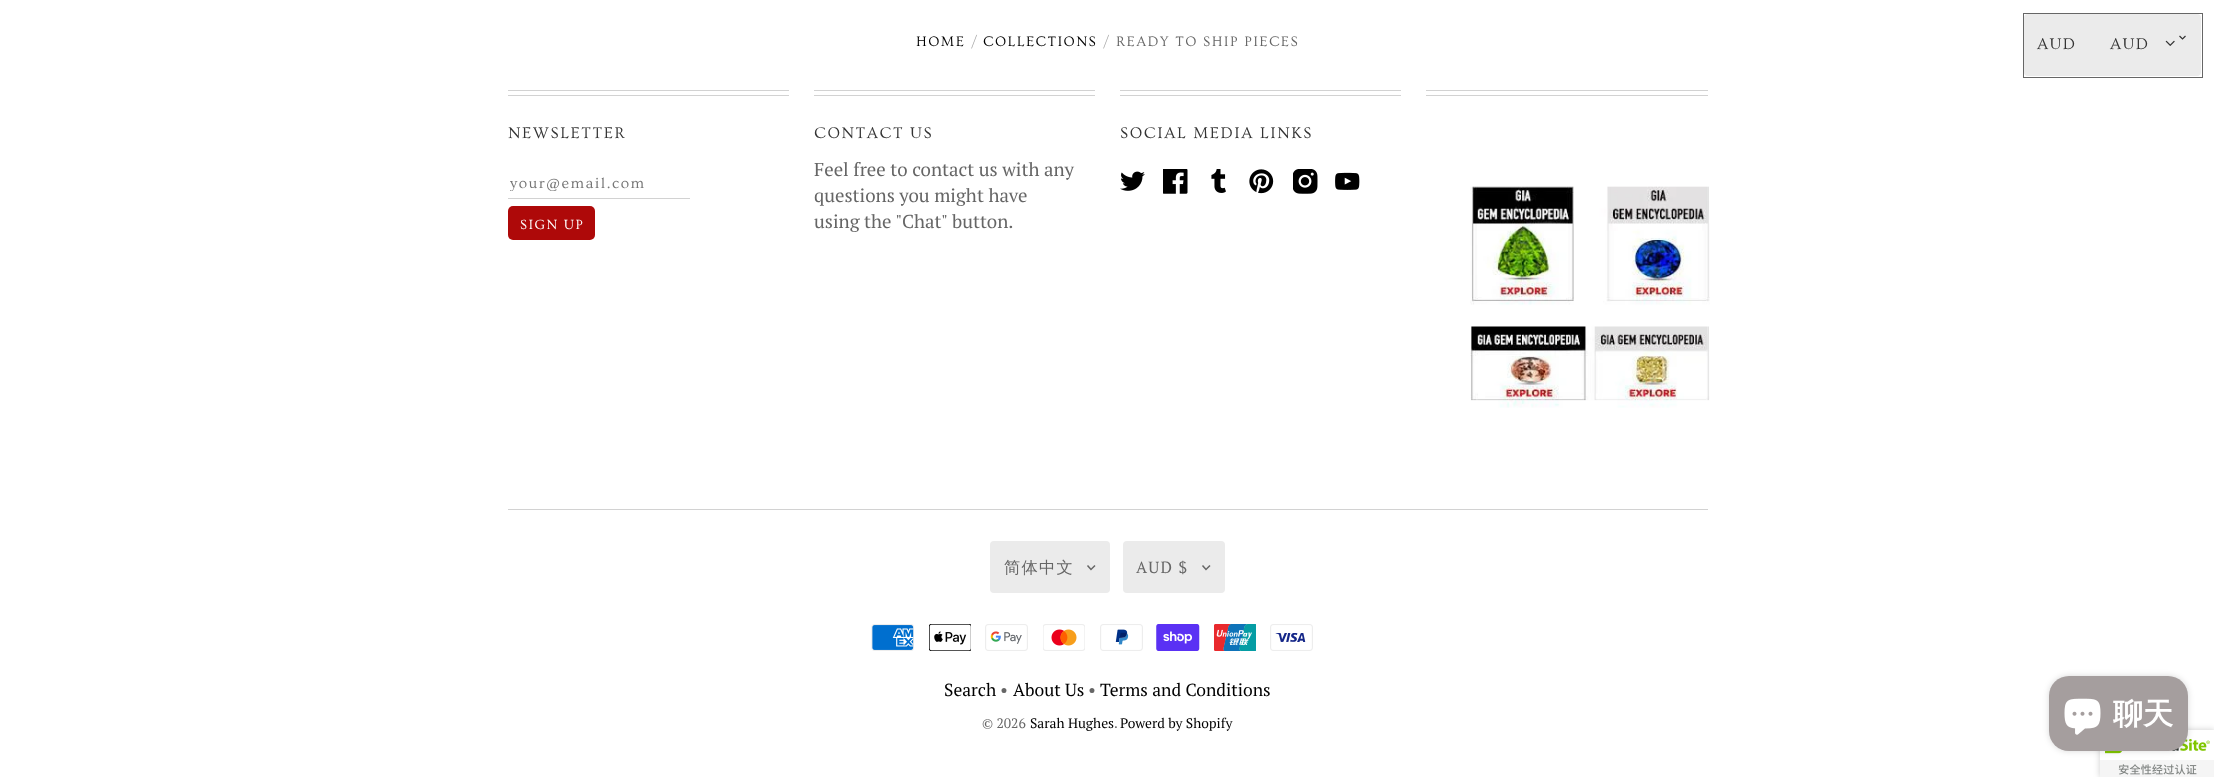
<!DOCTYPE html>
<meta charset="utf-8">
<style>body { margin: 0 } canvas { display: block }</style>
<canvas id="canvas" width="2214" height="777"></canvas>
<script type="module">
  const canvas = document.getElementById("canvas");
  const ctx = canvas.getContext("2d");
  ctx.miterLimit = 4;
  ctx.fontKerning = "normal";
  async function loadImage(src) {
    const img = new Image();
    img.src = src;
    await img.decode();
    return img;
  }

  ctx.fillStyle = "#ffffff";
  ctx.fillRect(0, 0, 2214, 777);
  ctx.letterSpacing = "1.4px";
  ctx.font = "14.5px Ovo";
  ctx.fillStyle = "#000000";
  ctx.fillText("HOME", 916, 46);
  ctx.fillStyle = "#aaaaaa";
  ctx.fillText("/", 971, 46);
  ctx.fillStyle = "#000000";
  ctx.fillText("COLLECTIONS", 983, 46);
  ctx.fillStyle = "#aaaaaa";
  ctx.fillText("/", 1103, 46);
  ctx.fillStyle = "#666666";
  ctx.fillText("READY TO SHIP PIECES", 1116, 46);
  ctx.fillStyle = "#d2d2d2";
  ctx.fillRect(508, 90, 281, 1);
  ctx.fillRect(508, 95, 281, 1);
  ctx.letterSpacing = "1.6px";
  ctx.font = "16.25px Ovo";
  ctx.fillStyle = "#333333";
  ctx.fillText("NEWSLETTER", 508, 138);
  ctx.fillStyle = "#d2d2d2";
  ctx.fillRect(508, 198, 182, 1);
  ctx.save();
  ctx.beginPath();
  ctx.rect(510, 174, 178, 17);
  ctx.clip();
  ctx.letterSpacing = "1.5px";
  ctx.font = "15.5px Ovo";
  ctx.fillStyle = "#757575";
  ctx.fillText("your@email.com", 510, 188);
  ctx.restore();
  ctx.fillStyle = "#ae0909";
  ctx.beginPath();
  ctx.roundRect(508, 206, 87, 34, 5);
  ctx.fill();
  ctx.letterSpacing = "1.5px";
  ctx.font = "14px Ovo";
  ctx.fillStyle = "#ffffff";
  ctx.fillText("SIGN UP", 520, 229);
  ctx.fillStyle = "#d2d2d2";
  ctx.fillRect(814, 90, 281, 1);
  ctx.fillRect(814, 95, 281, 1);
  ctx.letterSpacing = "1.6px";
  ctx.font = "16.25px Ovo";
  ctx.fillStyle = "#333333";
  ctx.fillText("CONTACT US", 814, 138);
  ctx.letterSpacing = "0px";
  ctx.font = "18.75px PT Serif";
  ctx.fillStyle = "#666666";
  ctx.fillText("Feel free to contact us with any", 814, 176);
  ctx.fillText("questions you might have", 814, 202);
  ctx.fillText("using the \"Chat\" button.", 814, 228);
  ctx.fillStyle = "#d2d2d2";
  ctx.fillRect(1120, 90, 281, 1);
  ctx.fillRect(1120, 95, 281, 1);
  ctx.letterSpacing = "1.6px";
  ctx.font = "16.25px Ovo";
  ctx.fillStyle = "#333333";
  ctx.fillText("SOCIAL MEDIA LINKS", 1120, 138);
  ctx.drawImage(await loadImage("img1.png"), 1120, 171, 25, 20);
  ctx.drawImage(await loadImage("img2.png"), 1163, 169, 25, 25);
  ctx.drawImage(await loadImage("img3.png"), 1211, 169, 15, 24);
  ctx.drawImage(await loadImage("img4.png"), 1249, 169, 25, 25);
  ctx.drawImage(await loadImage("img5.png"), 1293, 169, 25, 25);
  ctx.drawImage(await loadImage("img6.png"), 1335, 172, 25, 18);
  ctx.fillStyle = "#d2d2d2";
  ctx.fillRect(1426, 90, 282, 1);
  ctx.fillRect(1426, 95, 282, 1);
  ctx.drawImage(await loadImage("img7.png"), 1470, 186, 240, 222);
  ctx.fillRect(508, 509, 1200, 1);
  ctx.fillStyle = "#ebebeb";
  ctx.beginPath();
  ctx.roundRect(990, 541, 120, 52, 4);
  ctx.fill();
  ctx.letterSpacing = "1.25px";
  ctx.font = "500 16.25px WenQuanYi Zen Hei";
  ctx.fillStyle = "#666666";
  ctx.fillText("简体中文", 1004, 573);
  ctx.beginPath();
  ctx.moveTo(1087.5, 565.5);
  ctx.lineTo(1091, 569.5);
  ctx.lineTo(1095, 565.5);
  ctx.strokeStyle = "#666666";
  ctx.lineWidth = 1.5;
  ctx.stroke();
  ctx.fillStyle = "#ebebeb";
  ctx.beginPath();
  ctx.roundRect(1123, 541, 102, 52, 4);
  ctx.fill();
  ctx.font = "16.25px PT Serif";
  ctx.fillStyle = "#666666";
  ctx.fillText("AUD $", 1136, 573);
  ctx.beginPath();
  ctx.moveTo(1202.5, 565.5);
  ctx.lineTo(1206, 569.5);
  ctx.lineTo(1210, 565.5);
  ctx.stroke();
  ctx.drawImage(await loadImage("img8.png"), 871, 624, 43, 27);
  ctx.drawImage(await loadImage("img9.png"), 929, 624, 42, 27);
  ctx.drawImage(await loadImage("img10.png"), 985, 624, 43, 27);
  ctx.drawImage(await loadImage("img11.png"), 1043, 624, 42, 27);
  ctx.drawImage(await loadImage("img12.png"), 1100, 624, 43, 27);
  ctx.drawImage(await loadImage("img13.png"), 1156, 624, 44, 27);
  ctx.drawImage(await loadImage("img14.png"), 1214, 624, 42, 27);
  ctx.drawImage(await loadImage("img15.png"), 1270, 624, 43, 27);
  ctx.letterSpacing = "0px";
  ctx.font = "17.5px PT Serif";
  ctx.fillStyle = "#000000";
  ctx.fillText("Search", 944, 696);
  ctx.fillStyle = "#666666";
  ctx.fillText("•", 1000, 696);
  ctx.fillStyle = "#000000";
  ctx.fillText("About Us", 1013, 696);
  ctx.fillStyle = "#666666";
  ctx.fillText("•", 1088, 696);
  ctx.fillStyle = "#000000";
  ctx.fillText("Terms and Conditions", 1100, 696);
  ctx.font = "13.75px PT Serif";
  ctx.fillStyle = "#666666";
  ctx.fillText("© 2026", 982, 728);
  ctx.fillStyle = "#000000";
  ctx.fillText("Sarah Hughes", 1030, 728);
  ctx.fillStyle = "#666666";
  ctx.fillText(".", 1114, 728);
  ctx.fillStyle = "#000000";
  ctx.fillText("Powerd by Shopify", 1120, 728);
  ctx.lineWidth = 1;
  ctx.strokeRect(2023.5, 13.5, 179, 64);
  ctx.fillStyle = "#ebebeb";
  ctx.beginPath();
  ctx.roundRect(2024, 14, 177, 62, 4);
  ctx.fill();
  ctx.letterSpacing = "1.25px";
  ctx.font = "16.25px Ovo";
  ctx.fillStyle = "#333333";
  ctx.fillText("AUD", 2037, 49);
  ctx.fillText("AUD", 2110, 49);
  ctx.drawImage(await loadImage("img16.png"), 2165, 40, 10, 6);
  ctx.beginPath();
  ctx.moveTo(2179.5, 36);
  ctx.lineTo(2182.5, 39);
  ctx.lineTo(2185.5, 36);
  ctx.strokeStyle = "#333333";
  ctx.lineWidth = 1.2;
  ctx.stroke();
  ctx.fillStyle = "rgba(0, 0, 0, 0.2)";
  ctx.filter = "blur(3px)";
  ctx.beginPath();
  ctx.roundRect(2100, 730, 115, 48, 2.5);
  ctx.fill();
  ctx.filter = "none";
  ctx.fillStyle = "#ffffff";
  ctx.fillRect(2187, 730, 27, 6);
  ctx.drawImage(await loadImage("img18.png"), 2100, 736, 114, 41);
  ctx.fillStyle = "rgba(0, 0, 0, 0.15)";
  ctx.filter = "blur(3px)";
  ctx.beginPath();
  ctx.roundRect(2049, 676, 139, 75, 20);
  ctx.fill();
  ctx.filter = "none";
  ctx.fillStyle = "#a59e9e";
  ctx.beginPath();
  ctx.roundRect(2049, 676, 139, 75, 20);
  ctx.fill();
  ctx.drawImage(await loadImage("img17.png"), 2064, 698, 37, 37);
  ctx.save();
  ctx.beginPath();
  ctx.rect(2113, 695, 60, 38);
  ctx.clip();
  ctx.letterSpacing = "0px";
  ctx.font = "bold 30px WenQuanYi Zen Hei";
  ctx.fillStyle = "#ffffff";
  ctx.fillText("聊天", 2113, 724);
  ctx.restore();
</script>
